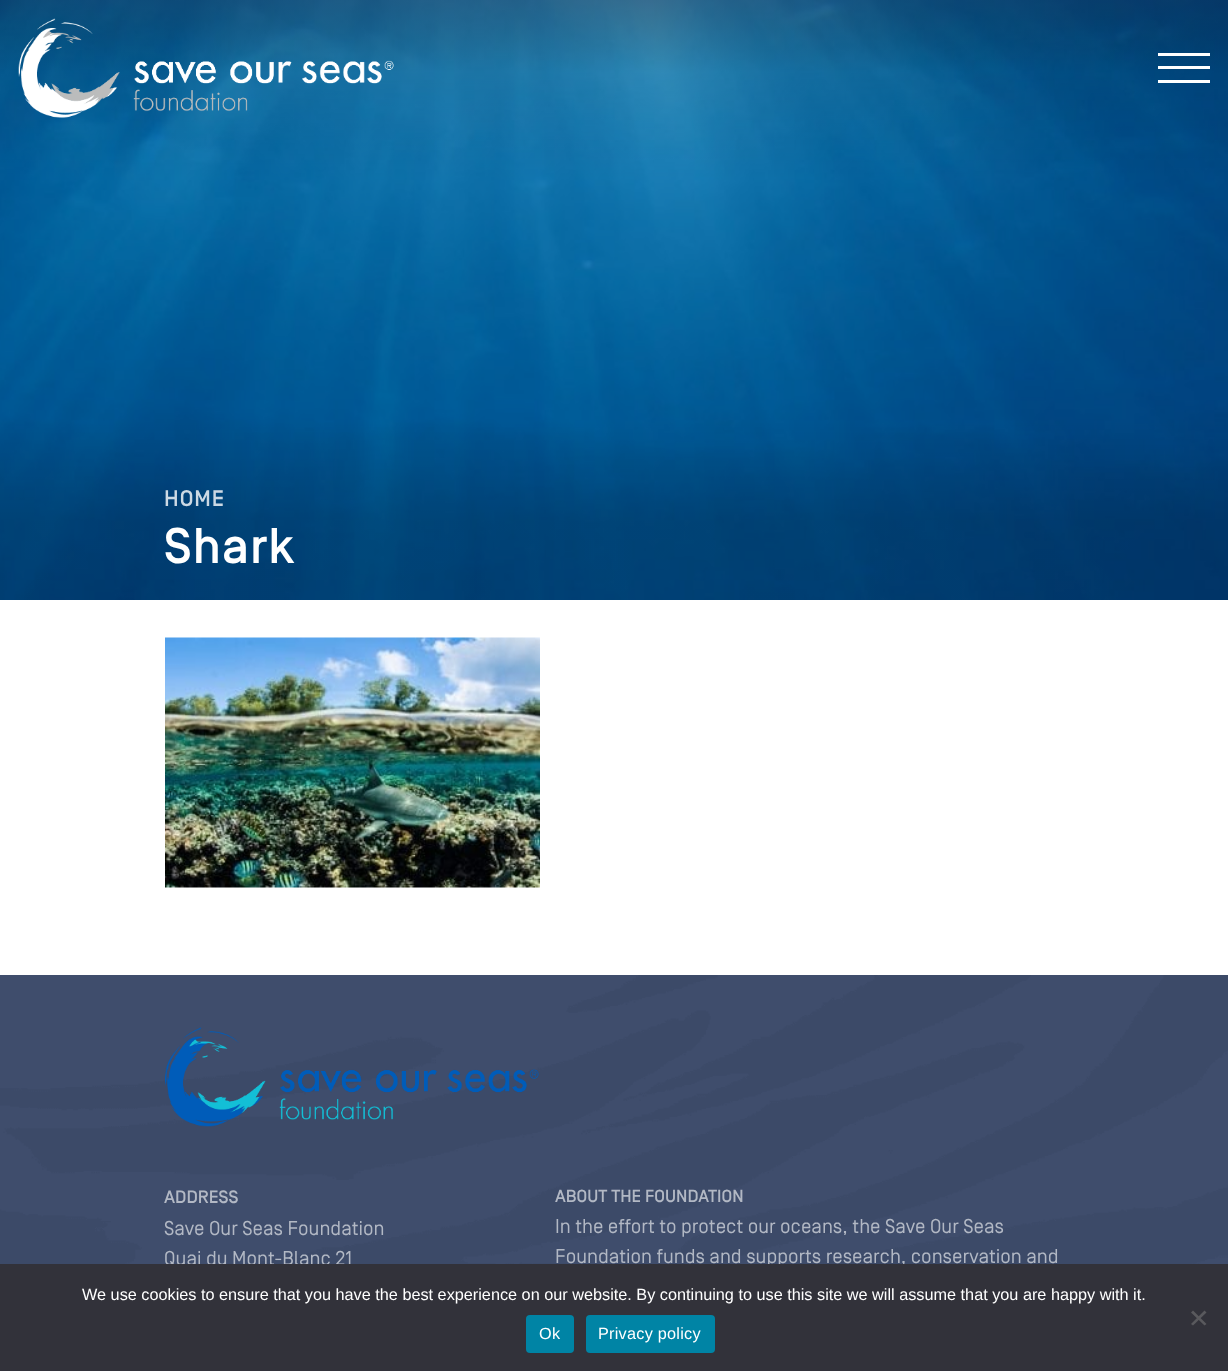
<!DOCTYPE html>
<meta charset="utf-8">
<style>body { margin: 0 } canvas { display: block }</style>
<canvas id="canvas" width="1228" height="1371"></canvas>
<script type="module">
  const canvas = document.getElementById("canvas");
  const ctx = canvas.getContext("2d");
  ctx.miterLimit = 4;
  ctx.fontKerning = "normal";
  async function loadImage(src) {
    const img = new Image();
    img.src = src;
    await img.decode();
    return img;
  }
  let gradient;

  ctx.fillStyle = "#ffffff";
  ctx.fillRect(0, 0, 1228, 1371);
  ctx.fillStyle = "#004da1";
  ctx.fillRect(0, 0, 1228, 600);
  ctx.drawImage(await loadImage("img2.png"), 0, 0, 1228, 600);
  gradient = ctx.createLinearGradient(614, 0, 614, 600);
  gradient.addColorStop(0, "rgba(15, 24, 51, 0.4)");
  gradient.addColorStop(0.12, "rgba(0, 0, 0, 0.1)");
  gradient.addColorStop(0.3, "rgba(0, 0, 0, 0)");
  gradient.addColorStop(0.7, "rgba(0, 0, 0, 0)");
  gradient.addColorStop(0.87, "rgba(0, 0, 0, 0.15)");
  ctx.fillStyle = gradient;
  ctx.fillRect(0, 0, 1228, 600);
  ctx.drawImage(await loadImage("img1.png"), 18, 18, 376, 100);
  ctx.fillStyle = "#ffffff";
  ctx.fillRect(1158, 53, 52, 3);
  ctx.fillRect(1158, 66, 52, 3);
  ctx.fillRect(1158, 80, 52, 3);
  ctx.letterSpacing = "1px";
  ctx.font = "500 22.5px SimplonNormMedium";
  ctx.fillStyle = "#ccd9e4";
  ctx.fillText("HOME", 164, 506);
  ctx.font = "500 50px SimplonNormMedium";
  ctx.fillStyle = "#ffffff";
  ctx.fillText("Shark", 164, 563);
  ctx.drawImage(await loadImage("img3.png"), 165, 637, 375, 251);
  ctx.drawImage(await loadImage("img4.png"), 0, 975, 1228, 289);
  ctx.letterSpacing = "0px";
  ctx.font = "20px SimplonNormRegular";
  ctx.fillStyle = "#b2b8c4";
  ctx.fillText("Quai du Mont-Blanc 21", 164, 1265);
  ctx.fillText("Foundation funds and supports research, conservation and", 555, 1263);
  ctx.fillStyle = "#32323a";
  ctx.fillRect(0, 1264, 1228, 107);
  ctx.font = "16.25px Liberation Sans";
  ctx.fillStyle = "#ffffff";
  ctx.fillText("We use cookies to ensure that you have the best experience on our website. By continuing to use this site we will assume that you are happy with it.", 82, 1300);
  ctx.fillStyle = "#59595d";
  ctx.beginPath();
  ctx.moveTo(1204.5, 1310.5);
  ctx.lineTo(1206.5, 1312.5);
  ctx.lineTo(1193, 1325.5);
  ctx.lineTo(1191, 1324);
  ctx.closePath();
  ctx.fill();
  ctx.beginPath();
  ctx.moveTo(1191, 1312.5);
  ctx.lineTo(1193, 1310.5);
  ctx.lineTo(1206.5, 1324);
  ctx.lineTo(1204.5, 1325.5);
  ctx.closePath();
  ctx.fill();
  ctx.fillStyle = "#0084a5";
  ctx.beginPath();
  ctx.roundRect(526, 1315, 48, 38, 4);
  ctx.fill();
  ctx.letterSpacing = "0.25px";
  ctx.fillStyle = "#ffffff";
  ctx.fillText("Ok", 539, 1339);
  ctx.fillStyle = "#0084a5";
  ctx.beginPath();
  ctx.roundRect(586, 1315, 129, 38, 4);
  ctx.fill();
  ctx.fillStyle = "#ffffff";
  ctx.fillText("Privacy policy", 598, 1339);
  ctx.drawImage(await loadImage("img5.png"), 165, 1027, 374, 100);
  ctx.letterSpacing = "0px";
  ctx.font = "500 18px SimplonNormMedium";
  ctx.fillStyle = "#b2b8c4";
  ctx.fillText("ADDRESS", 164, 1203);
  ctx.font = "20px SimplonNormRegular";
  ctx.fillText("Save Our Seas Foundation", 164, 1235);
  ctx.font = "500 17.5px SimplonNormMedium";
  ctx.fillText("ABOUT THE FOUNDATION", 555, 1202);
  ctx.font = "20px SimplonNormRegular";
  ctx.fillText("In the effort to protect our oceans, the Save Our Seas", 555, 1233);
</script>
